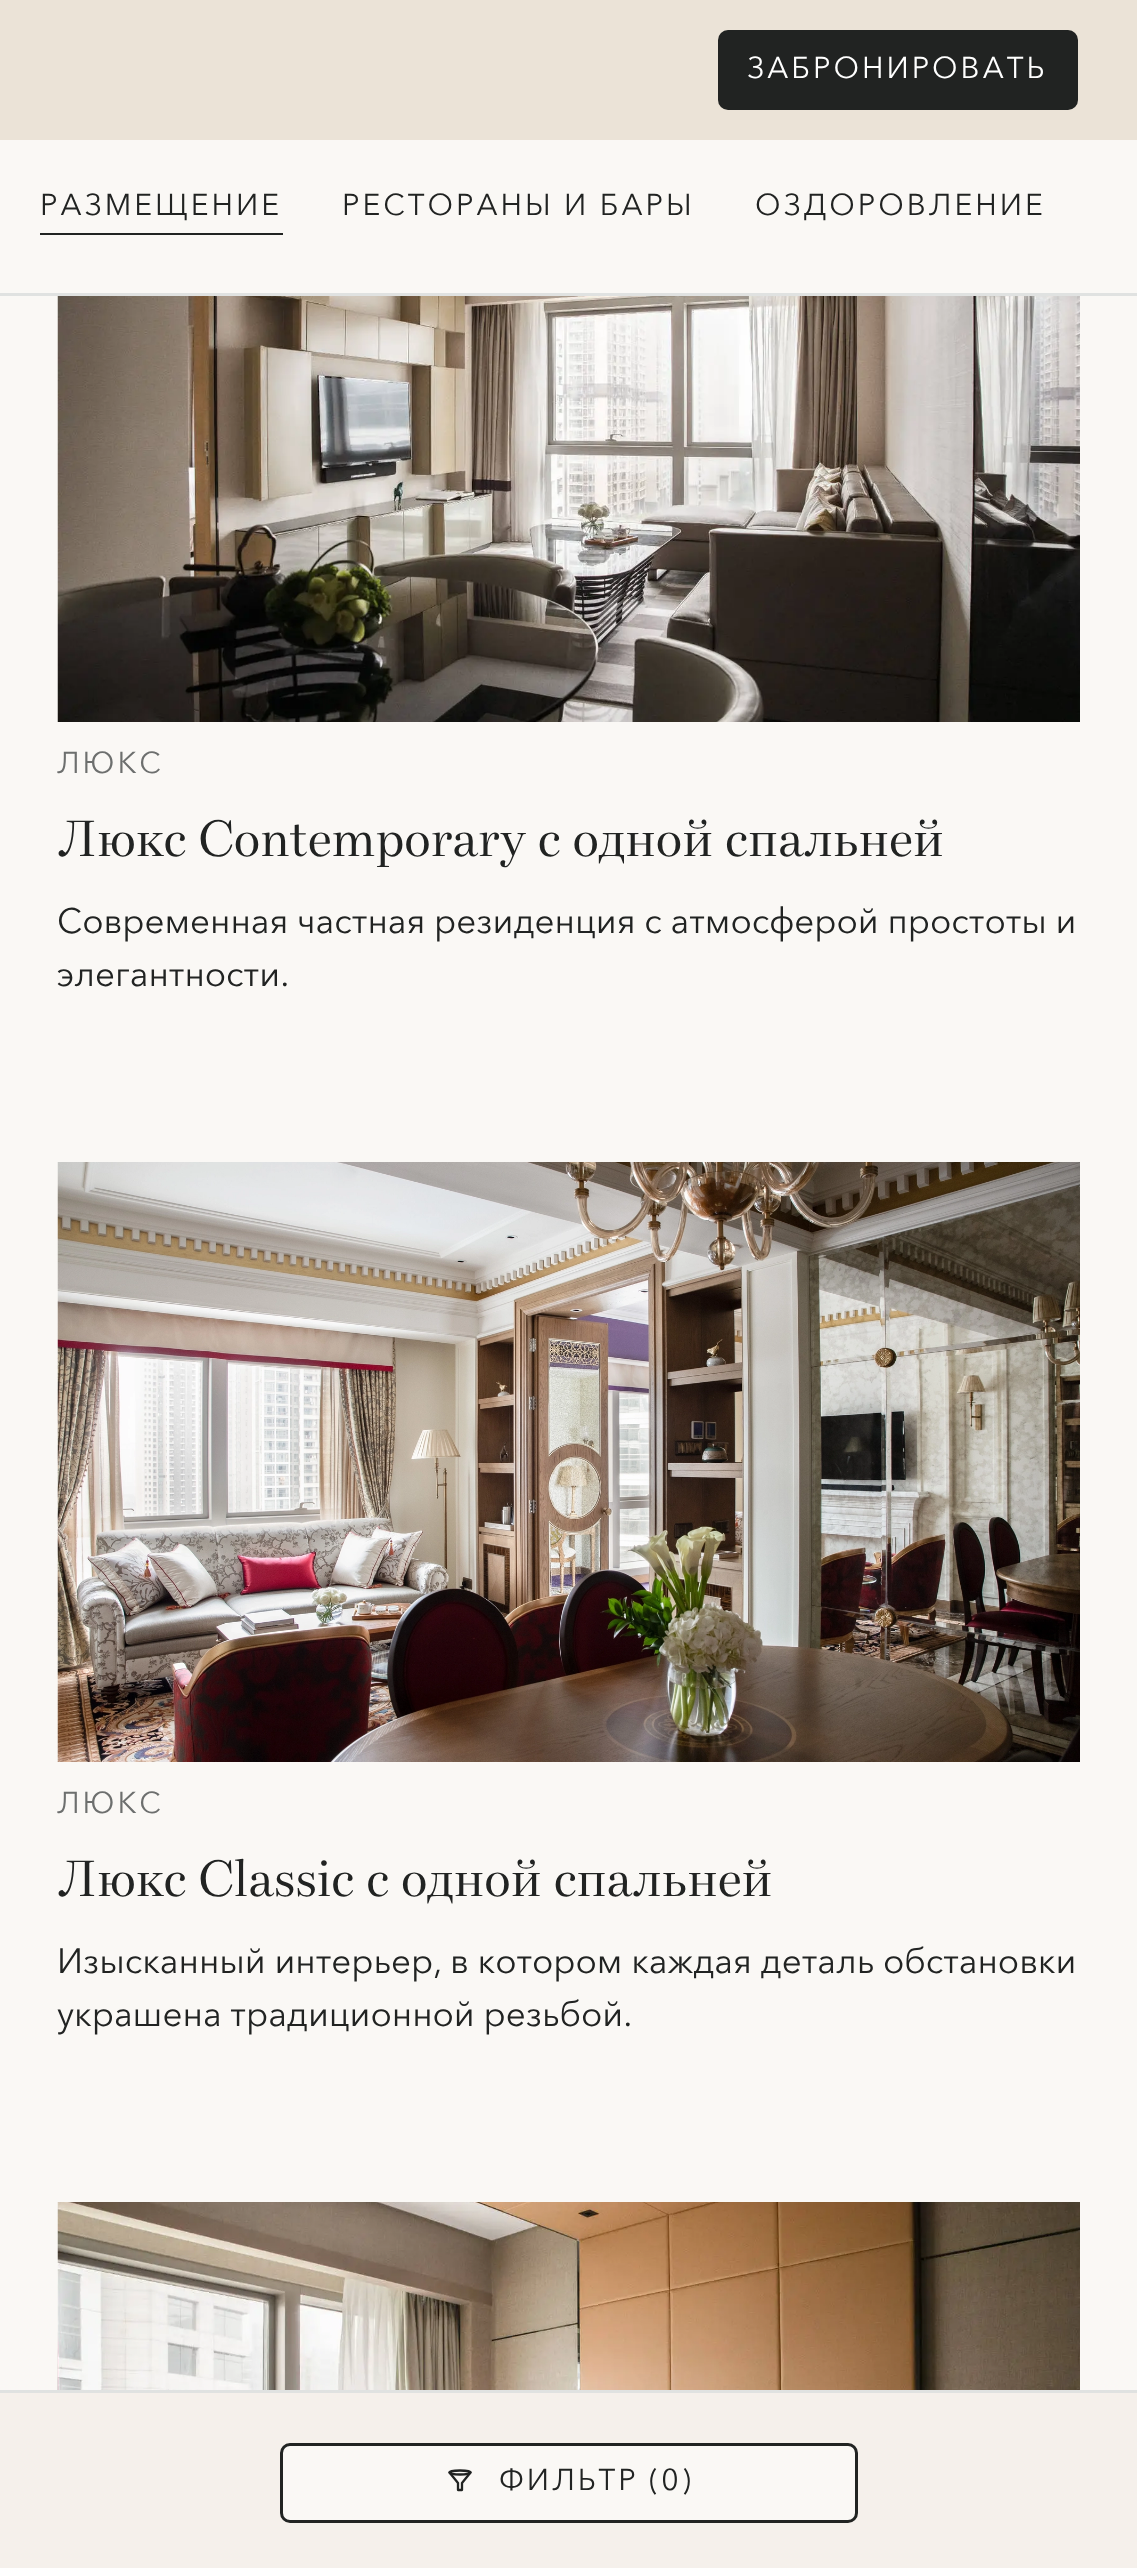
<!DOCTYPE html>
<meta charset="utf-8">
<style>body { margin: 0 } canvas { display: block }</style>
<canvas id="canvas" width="1137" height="2568"></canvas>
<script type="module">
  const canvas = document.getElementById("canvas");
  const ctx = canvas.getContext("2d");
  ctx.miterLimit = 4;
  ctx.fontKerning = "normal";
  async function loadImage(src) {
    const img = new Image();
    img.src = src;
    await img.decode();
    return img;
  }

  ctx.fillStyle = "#faf8f5";
  ctx.fillRect(0, 0, 1137, 2568);
  ctx.fillStyle = "#ebe3d7";
  ctx.fillRect(0, 0, 1137, 140);
  ctx.fillStyle = "#212322";
  ctx.beginPath();
  ctx.roundRect(718, 30, 360, 80, 10);
  ctx.fill();
  ctx.letterSpacing = "3px";
  ctx.font = "30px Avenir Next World";
  ctx.fillStyle = "#ffffff";
  ctx.fillText("ЗАБРОНИРОВАТЬ", 747, 78);
  ctx.fillStyle = "#e0e2e1";
  ctx.fillRect(0, 293, 1137, 3);
  ctx.fillStyle = "#212322";
  ctx.fillRect(40, 233, 243, 2);
  ctx.fillText("РАЗМЕЩЕНИЕ", 40, 215);
  ctx.fillText("РЕСТОРАНЫ И БАРЫ", 342, 215);
  ctx.fillText("ОЗДОРОВЛЕНИЕ", 755, 215);
  ctx.drawImage(await loadImage("img1.png"), 57, 296, 1023, 426);
  ctx.fillStyle = "#6d6f6e";
  ctx.fillText("ЛЮКС", 57, 773);
  ctx.letterSpacing = "0px";
  ctx.font = "50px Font";
  ctx.fillStyle = "#212322";
  ctx.fillText("Люкс Contemporary с одной спальней", 57, 856);
  ctx.font = "35px Avenir Next World";
  ctx.fillText("Современная частная резиденция с атмосферой простоты и", 57, 933);
  ctx.fillText("элегантности.", 57, 986);
  ctx.drawImage(await loadImage("img2.png"), 57, 1162, 1023, 600);
  ctx.letterSpacing = "3px";
  ctx.font = "30px Avenir Next World";
  ctx.fillStyle = "#6d6f6e";
  ctx.fillText("ЛЮКС", 57, 1813);
  ctx.letterSpacing = "0px";
  ctx.font = "50px Font";
  ctx.fillStyle = "#212322";
  ctx.fillText("Люкс Classic с одной спальней", 57, 1896);
  ctx.font = "35px Avenir Next World";
  ctx.fillText("Изысканный интерьер, в котором каждая деталь обстановки", 57, 1973);
  ctx.fillText("украшена традиционной резьбой.", 57, 2026);
  ctx.drawImage(await loadImage("img3.png"), 57, 2202, 1023, 188);
  ctx.fillStyle = "#f5f0eb";
  ctx.fillRect(0, 2393, 1137, 175);
  ctx.fillStyle = "#e0e2e1";
  ctx.fillRect(0, 2390, 1137, 3);
  ctx.fillStyle = "#faf8f5";
  ctx.beginPath();
  ctx.roundRect(281.5, 2444.5, 575, 77, 8.5);
  ctx.fill();
  ctx.strokeStyle = "#212322";
  ctx.lineWidth = 3;
  ctx.stroke();
  ctx.beginPath();
  ctx.moveTo(470.5, 2472.5);
  ctx.lineTo(462, 2483);
  ctx.lineTo(462, 2490);
  ctx.lineTo(458, 2490);
  ctx.lineTo(458, 2483);
  ctx.lineTo(449.5, 2472.5);
  ctx.lineWidth = 2.3;
  ctx.lineCap = "round";
  ctx.lineJoin = "round";
  ctx.stroke();
  ctx.beginPath();
  ctx.ellipse(460, 2472.5, 10.5, 2, 0, 0, Math.PI * 2);
  ctx.stroke();
  ctx.letterSpacing = "3px";
  ctx.font = "30px Avenir Next World";
  ctx.fillStyle = "#212322";
  ctx.fillText("ФИЛЬТР (0)", 499, 2490);
</script>
